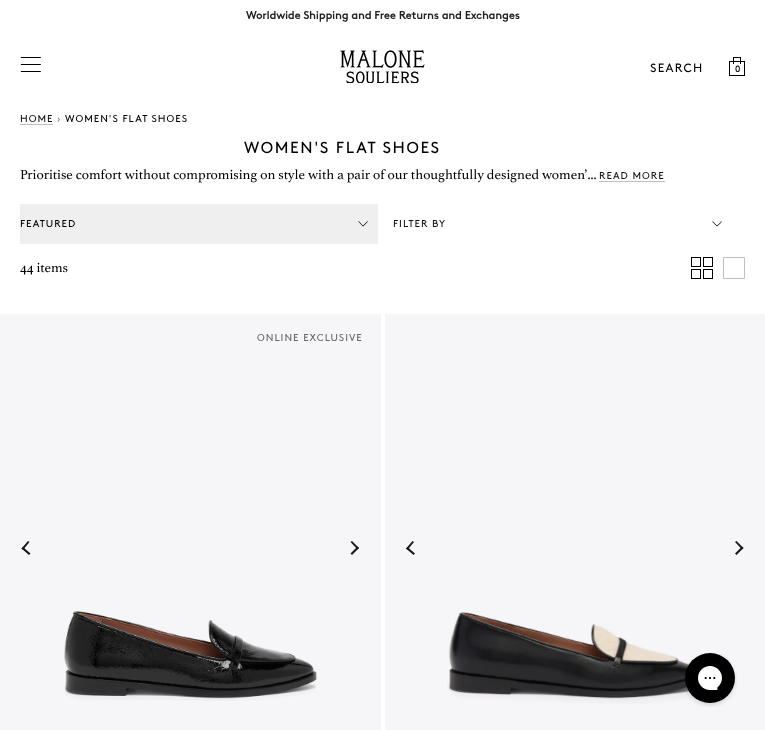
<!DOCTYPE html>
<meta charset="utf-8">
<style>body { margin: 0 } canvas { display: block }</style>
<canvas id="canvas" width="765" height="730"></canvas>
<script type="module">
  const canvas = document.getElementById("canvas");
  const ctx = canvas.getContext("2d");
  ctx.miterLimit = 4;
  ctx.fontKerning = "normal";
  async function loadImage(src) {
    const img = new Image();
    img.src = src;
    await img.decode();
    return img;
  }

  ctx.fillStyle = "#ffffff";
  ctx.fillRect(0, 0, 765, 730);
  ctx.font = "bold 11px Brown";
  ctx.fillStyle = "#202223";
  ctx.fillText("Worldwide Shipping and Free Returns and Exchanges", 246, 19);
  ctx.drawImage(await loadImage("img1.png"), 20, 57, 21, 15);
  ctx.drawImage(await loadImage("img2.png"), 340, 50, 85, 33);
  ctx.letterSpacing = "1.25px";
  ctx.font = "12px Brown";
  ctx.fillStyle = "#000000";
  ctx.fillText("SEARCH", 650, 72);
  ctx.font = "9px Brown";
  ctx.fillText("0", 735, 72);
  ctx.drawImage(await loadImage("img3.png"), 729, 57, 16, 19);
  ctx.letterSpacing = "1px";
  ctx.font = "10px Brown";
  ctx.fillStyle = "#111111";
  ctx.fillText("HOME", 20, 122);
  ctx.fillStyle = "#bfbfbf";
  ctx.fillRect(20, 124, 33, 1);
  ctx.fillStyle = "#808080";
  ctx.fillText("›", 57, 122);
  ctx.fillStyle = "#000000";
  ctx.fillText("WOMEN'S FLAT SHOES", 65, 122);
  ctx.letterSpacing = "1.6px";
  ctx.font = "16px Brown";
  ctx.fillText("WOMEN'S FLAT SHOES", 244, 153);
  ctx.letterSpacing = "0px";
  ctx.font = "14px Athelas";
  ctx.fillText("Prioritise comfort without compromising on style with a pair of our thoughtfully designed women’...", 20, 179);
  ctx.letterSpacing = "1px";
  ctx.font = "10px Brown";
  ctx.fillStyle = "#111111";
  ctx.fillText("READ MORE", 599, 179);
  ctx.fillStyle = "#bfbfbf";
  ctx.fillRect(599, 181, 66, 1);
  ctx.fillStyle = "#efefef";
  ctx.fillRect(20, 204, 358, 40);
  ctx.drawImage(await loadImage("img4.png"), 358, 221, 10, 6);
  ctx.fillStyle = "#000000";
  ctx.fillText("FEATURED", 20, 227);
  ctx.fillStyle = "#111111";
  ctx.fillText("FILTER BY", 393, 227);
  ctx.drawImage(await loadImage("img5.png"), 712, 221, 10, 6);
  ctx.letterSpacing = "0px";
  ctx.font = "14px Athelas";
  ctx.fillStyle = "#000000";
  ctx.fillText("44 items", 20, 272);
  ctx.drawImage(await loadImage("img6.png"), 691, 257, 22, 22);
  ctx.beginPath();
  ctx.moveTo(723.5, 257.5);
  ctx.lineTo(744.5, 257.5);
  ctx.lineTo(744.5, 278.5);
  ctx.lineTo(723.5, 278.5);
  ctx.closePath();
  ctx.strokeStyle = "#bfbfbf";
  ctx.stroke();
  ctx.fillStyle = "#f6f5f8";
  ctx.fillRect(0, 314, 381, 416);
  ctx.letterSpacing = "1px";
  ctx.font = "10px Brown";
  ctx.fillStyle = "#666666";
  ctx.fillText("ONLINE EXCLUSIVE", 257, 341);
  ctx.fillStyle = "#1a1919";
  ctx.beginPath();
  ctx.moveTo(30.5, 553.5);
  ctx.lineTo(29, 555);
  ctx.lineTo(21.5, 548.5);
  ctx.lineTo(23, 547);
  ctx.closePath();
  ctx.fill();
  ctx.beginPath();
  ctx.moveTo(29.5, 542);
  ctx.lineTo(23, 550);
  ctx.lineTo(21.5, 548.5);
  ctx.lineTo(28, 541);
  ctx.closePath();
  ctx.fill();
  ctx.beginPath();
  ctx.moveTo(350.5, 542);
  ctx.lineTo(352, 541);
  ctx.lineTo(359, 548);
  ctx.lineTo(357.5, 549.5);
  ctx.closePath();
  ctx.fill();
  ctx.beginPath();
  ctx.moveTo(350.5, 553.5);
  ctx.lineTo(357.5, 546.5);
  ctx.lineTo(359, 548);
  ctx.lineTo(352, 555);
  ctx.closePath();
  ctx.fill();
  ctx.drawImage(await loadImage("img7.png"), 64, 611, 253, 90);
  ctx.fillStyle = "#f6f5f8";
  ctx.fillRect(385, 314, 380, 416);
  ctx.fillStyle = "#1a1919";
  ctx.beginPath();
  ctx.moveTo(415, 553.5);
  ctx.lineTo(413.5, 555);
  ctx.lineTo(406, 548.5);
  ctx.lineTo(407.5, 547);
  ctx.closePath();
  ctx.fill();
  ctx.beginPath();
  ctx.moveTo(414, 542);
  ctx.lineTo(407.5, 550);
  ctx.lineTo(406, 548.5);
  ctx.lineTo(412.5, 541);
  ctx.closePath();
  ctx.fill();
  ctx.beginPath();
  ctx.moveTo(735, 542);
  ctx.lineTo(736.5, 541);
  ctx.lineTo(743.5, 548);
  ctx.lineTo(742, 549.5);
  ctx.closePath();
  ctx.fill();
  ctx.beginPath();
  ctx.moveTo(735, 553.5);
  ctx.lineTo(742, 546.5);
  ctx.lineTo(743.5, 548);
  ctx.lineTo(736.5, 555);
  ctx.closePath();
  ctx.fill();
  ctx.drawImage(await loadImage("img8.png"), 447, 612, 255, 92);
  ctx.drawImage(await loadImage("img9.png"), 685, 653, 52, 54);
</script>
